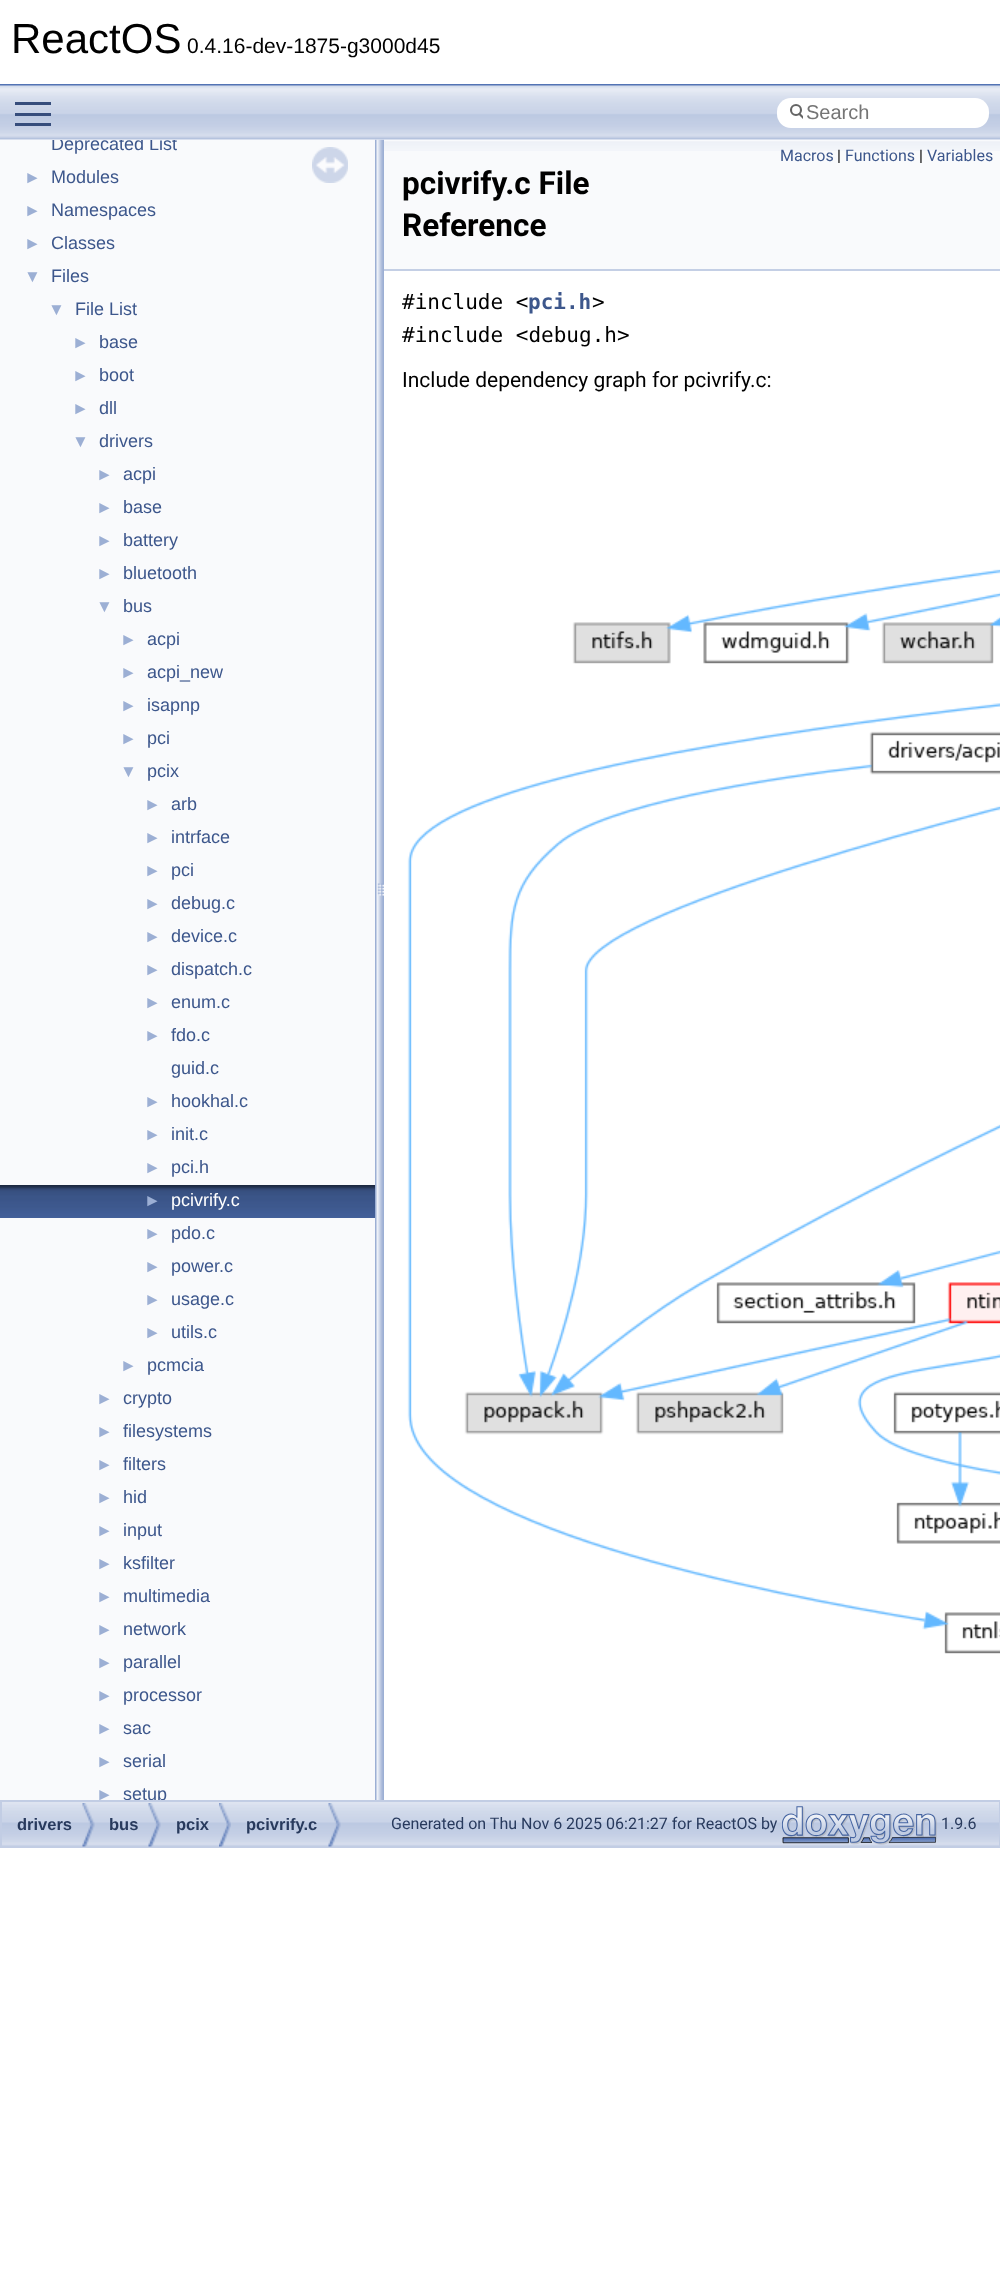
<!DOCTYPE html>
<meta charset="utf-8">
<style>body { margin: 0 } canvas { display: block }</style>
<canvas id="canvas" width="1000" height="2280"></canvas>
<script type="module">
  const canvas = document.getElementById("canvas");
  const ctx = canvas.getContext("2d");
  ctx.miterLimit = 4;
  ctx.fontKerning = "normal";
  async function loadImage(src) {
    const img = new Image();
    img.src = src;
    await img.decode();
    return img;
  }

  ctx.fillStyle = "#ffffff";
  ctx.fillRect(0, 0, 1000, 2280);
  ctx.fillStyle = "#5373b4";
  ctx.fillRect(0, 84, 1000, 2);
  ctx.font = "42px Liberation Sans";
  ctx.fillStyle = "#000000";
  ctx.fillText("ReactOS", 11, 53);
  ctx.font = "21px Liberation Sans";
  ctx.fillText("0.4.16-dev-1875-g3000d45", 187, 53);
  ctx.drawImage(await loadImage("img4.png"), 375, 139, 9, 1661);
  ctx.drawImage(await loadImage("img1.png"), 0, 85, 1000, 55);
  ctx.fillStyle = "#364d7c";
  ctx.fillRect(15, 113, 36, 3);
  ctx.fillRect(15, 102, 36, 3);
  ctx.fillRect(15, 123, 36, 3);
  ctx.fillStyle = "#ffffff";
  ctx.beginPath();
  ctx.roundRect(777, 98, 212, 30, 14);
  ctx.fill();
  ctx.beginPath();
  ctx.arc(796, 110, 5, 0, Math.PI * 2);
  ctx.strokeStyle = "#656565";
  ctx.lineWidth = 2.1;
  ctx.stroke();
  ctx.save();
  ctx.beginPath();
  ctx.rect(788, 98, 15, 28);
  ctx.clip();
  ctx.beginPath();
  ctx.moveTo(799.5, 114);
  ctx.lineTo(804, 118.5);
  ctx.lineCap = "round";
  ctx.stroke();
  ctx.restore();
  ctx.font = "20px Liberation Sans";
  ctx.fillStyle = "#757575";
  ctx.fillText("Search", 806, 119);
  ctx.fillStyle = "#f9fafc";
  ctx.fillRect(0, 140, 375, 1660);
  ctx.save();
  ctx.beginPath();
  ctx.rect(0, 140, 375, 1660);
  ctx.clip();
  ctx.font = "18px Liberation Sans";
  ctx.fillStyle = "#3d578c";
  ctx.fillText("Deprecated List", 51, 150);
  ctx.restore();
  ctx.font = "17px Liberation Sans";
  ctx.fillStyle = "#9cafd4";
  ctx.fillText("►", 24, 183);
  ctx.font = "18px Liberation Sans";
  ctx.fillStyle = "#3d578c";
  ctx.fillText("Modules", 51, 183);
  ctx.font = "17px Liberation Sans";
  ctx.fillStyle = "#9cafd4";
  ctx.fillText("►", 24, 216);
  ctx.font = "18px Liberation Sans";
  ctx.fillStyle = "#3d578c";
  ctx.fillText("Namespaces", 51, 216);
  ctx.font = "17px Liberation Sans";
  ctx.fillStyle = "#9cafd4";
  ctx.fillText("►", 24, 249);
  ctx.font = "18px Liberation Sans";
  ctx.fillStyle = "#3d578c";
  ctx.fillText("Classes", 51, 249);
  ctx.font = "17px Liberation Sans";
  ctx.fillStyle = "#9cafd4";
  ctx.fillText("▼", 24, 282);
  ctx.font = "18px Liberation Sans";
  ctx.fillStyle = "#3d578c";
  ctx.fillText("Files", 51, 282);
  ctx.font = "17px Liberation Sans";
  ctx.fillStyle = "#9cafd4";
  ctx.fillText("▼", 48, 315);
  ctx.font = "18px Liberation Sans";
  ctx.fillStyle = "#3d578c";
  ctx.fillText("File List", 75, 315);
  ctx.font = "17px Liberation Sans";
  ctx.fillStyle = "#9cafd4";
  ctx.fillText("►", 72, 348);
  ctx.font = "18px Liberation Sans";
  ctx.fillStyle = "#3d578c";
  ctx.fillText("base", 99, 348);
  ctx.font = "17px Liberation Sans";
  ctx.fillStyle = "#9cafd4";
  ctx.fillText("►", 72, 381);
  ctx.font = "18px Liberation Sans";
  ctx.fillStyle = "#3d578c";
  ctx.fillText("boot", 99, 381);
  ctx.font = "17px Liberation Sans";
  ctx.fillStyle = "#9cafd4";
  ctx.fillText("►", 72, 414);
  ctx.font = "18px Liberation Sans";
  ctx.fillStyle = "#3d578c";
  ctx.fillText("dll", 99, 414);
  ctx.font = "17px Liberation Sans";
  ctx.fillStyle = "#9cafd4";
  ctx.fillText("▼", 72, 447);
  ctx.font = "18px Liberation Sans";
  ctx.fillStyle = "#3d578c";
  ctx.fillText("drivers", 99, 447);
  ctx.font = "17px Liberation Sans";
  ctx.fillStyle = "#9cafd4";
  ctx.fillText("►", 96, 480);
  ctx.font = "18px Liberation Sans";
  ctx.fillStyle = "#3d578c";
  ctx.fillText("acpi", 123, 480);
  ctx.font = "17px Liberation Sans";
  ctx.fillStyle = "#9cafd4";
  ctx.fillText("►", 96, 513);
  ctx.font = "18px Liberation Sans";
  ctx.fillStyle = "#3d578c";
  ctx.fillText("base", 123, 513);
  ctx.font = "17px Liberation Sans";
  ctx.fillStyle = "#9cafd4";
  ctx.fillText("►", 96, 546);
  ctx.font = "18px Liberation Sans";
  ctx.fillStyle = "#3d578c";
  ctx.fillText("battery", 123, 546);
  ctx.font = "17px Liberation Sans";
  ctx.fillStyle = "#9cafd4";
  ctx.fillText("►", 96, 579);
  ctx.font = "18px Liberation Sans";
  ctx.fillStyle = "#3d578c";
  ctx.fillText("bluetooth", 123, 579);
  ctx.font = "17px Liberation Sans";
  ctx.fillStyle = "#9cafd4";
  ctx.fillText("▼", 96, 612);
  ctx.font = "18px Liberation Sans";
  ctx.fillStyle = "#3d578c";
  ctx.fillText("bus", 123, 612);
  ctx.font = "17px Liberation Sans";
  ctx.fillStyle = "#9cafd4";
  ctx.fillText("►", 120, 645);
  ctx.font = "18px Liberation Sans";
  ctx.fillStyle = "#3d578c";
  ctx.fillText("acpi", 147, 645);
  ctx.font = "17px Liberation Sans";
  ctx.fillStyle = "#9cafd4";
  ctx.fillText("►", 120, 678);
  ctx.font = "18px Liberation Sans";
  ctx.fillStyle = "#3d578c";
  ctx.fillText("acpi_new", 147, 678);
  ctx.font = "17px Liberation Sans";
  ctx.fillStyle = "#9cafd4";
  ctx.fillText("►", 120, 711);
  ctx.font = "18px Liberation Sans";
  ctx.fillStyle = "#3d578c";
  ctx.fillText("isapnp", 147, 711);
  ctx.font = "17px Liberation Sans";
  ctx.fillStyle = "#9cafd4";
  ctx.fillText("►", 120, 744);
  ctx.font = "18px Liberation Sans";
  ctx.fillStyle = "#3d578c";
  ctx.fillText("pci", 147, 744);
  ctx.font = "17px Liberation Sans";
  ctx.fillStyle = "#9cafd4";
  ctx.fillText("▼", 120, 777);
  ctx.font = "18px Liberation Sans";
  ctx.fillStyle = "#3d578c";
  ctx.fillText("pcix", 147, 777);
  ctx.font = "17px Liberation Sans";
  ctx.fillStyle = "#9cafd4";
  ctx.fillText("►", 144, 810);
  ctx.font = "18px Liberation Sans";
  ctx.fillStyle = "#3d578c";
  ctx.fillText("arb", 171, 810);
  ctx.font = "17px Liberation Sans";
  ctx.fillStyle = "#9cafd4";
  ctx.fillText("►", 144, 843);
  ctx.font = "18px Liberation Sans";
  ctx.fillStyle = "#3d578c";
  ctx.fillText("intrface", 171, 843);
  ctx.font = "17px Liberation Sans";
  ctx.fillStyle = "#9cafd4";
  ctx.fillText("►", 144, 876);
  ctx.font = "18px Liberation Sans";
  ctx.fillStyle = "#3d578c";
  ctx.fillText("pci", 171, 876);
  ctx.font = "17px Liberation Sans";
  ctx.fillStyle = "#9cafd4";
  ctx.fillText("►", 144, 909);
  ctx.font = "18px Liberation Sans";
  ctx.fillStyle = "#3d578c";
  ctx.fillText("debug.c", 171, 909);
  ctx.font = "17px Liberation Sans";
  ctx.fillStyle = "#9cafd4";
  ctx.fillText("►", 144, 942);
  ctx.font = "18px Liberation Sans";
  ctx.fillStyle = "#3d578c";
  ctx.fillText("device.c", 171, 942);
  ctx.font = "17px Liberation Sans";
  ctx.fillStyle = "#9cafd4";
  ctx.fillText("►", 144, 975);
  ctx.font = "18px Liberation Sans";
  ctx.fillStyle = "#3d578c";
  ctx.fillText("dispatch.c", 171, 975);
  ctx.font = "17px Liberation Sans";
  ctx.fillStyle = "#9cafd4";
  ctx.fillText("►", 144, 1008);
  ctx.font = "18px Liberation Sans";
  ctx.fillStyle = "#3d578c";
  ctx.fillText("enum.c", 171, 1008);
  ctx.font = "17px Liberation Sans";
  ctx.fillStyle = "#9cafd4";
  ctx.fillText("►", 144, 1041);
  ctx.font = "18px Liberation Sans";
  ctx.fillStyle = "#3d578c";
  ctx.fillText("fdo.c", 171, 1041);
  ctx.fillText("guid.c", 171, 1074);
  ctx.font = "17px Liberation Sans";
  ctx.fillStyle = "#9cafd4";
  ctx.fillText("►", 144, 1107);
  ctx.font = "18px Liberation Sans";
  ctx.fillStyle = "#3d578c";
  ctx.fillText("hookhal.c", 171, 1107);
  ctx.font = "17px Liberation Sans";
  ctx.fillStyle = "#9cafd4";
  ctx.fillText("►", 144, 1140);
  ctx.font = "18px Liberation Sans";
  ctx.fillStyle = "#3d578c";
  ctx.fillText("init.c", 171, 1140);
  ctx.font = "17px Liberation Sans";
  ctx.fillStyle = "#9cafd4";
  ctx.fillText("►", 144, 1173);
  ctx.font = "18px Liberation Sans";
  ctx.fillStyle = "#3d578c";
  ctx.fillText("pci.h", 171, 1173);
  ctx.drawImage(await loadImage("img2.png"), 0, 1185, 375, 33);
  ctx.font = "17px Liberation Sans";
  ctx.fillStyle = "#9cafd4";
  ctx.fillText("►", 144, 1206);
  ctx.font = "18px Liberation Sans";
  ctx.fillStyle = "#ffffff";
  ctx.fillText("pcivrify.c", 171, 1206);
  ctx.font = "17px Liberation Sans";
  ctx.fillStyle = "#9cafd4";
  ctx.fillText("►", 144, 1239);
  ctx.font = "18px Liberation Sans";
  ctx.fillStyle = "#3d578c";
  ctx.fillText("pdo.c", 171, 1239);
  ctx.font = "17px Liberation Sans";
  ctx.fillStyle = "#9cafd4";
  ctx.fillText("►", 144, 1272);
  ctx.font = "18px Liberation Sans";
  ctx.fillStyle = "#3d578c";
  ctx.fillText("power.c", 171, 1272);
  ctx.font = "17px Liberation Sans";
  ctx.fillStyle = "#9cafd4";
  ctx.fillText("►", 144, 1305);
  ctx.font = "18px Liberation Sans";
  ctx.fillStyle = "#3d578c";
  ctx.fillText("usage.c", 171, 1305);
  ctx.font = "17px Liberation Sans";
  ctx.fillStyle = "#9cafd4";
  ctx.fillText("►", 144, 1338);
  ctx.font = "18px Liberation Sans";
  ctx.fillStyle = "#3d578c";
  ctx.fillText("utils.c", 171, 1338);
  ctx.font = "17px Liberation Sans";
  ctx.fillStyle = "#9cafd4";
  ctx.fillText("►", 120, 1371);
  ctx.font = "18px Liberation Sans";
  ctx.fillStyle = "#3d578c";
  ctx.fillText("pcmcia", 147, 1371);
  ctx.font = "17px Liberation Sans";
  ctx.fillStyle = "#9cafd4";
  ctx.fillText("►", 96, 1404);
  ctx.font = "18px Liberation Sans";
  ctx.fillStyle = "#3d578c";
  ctx.fillText("crypto", 123, 1404);
  ctx.font = "17px Liberation Sans";
  ctx.fillStyle = "#9cafd4";
  ctx.fillText("►", 96, 1437);
  ctx.font = "18px Liberation Sans";
  ctx.fillStyle = "#3d578c";
  ctx.fillText("filesystems", 123, 1437);
  ctx.font = "17px Liberation Sans";
  ctx.fillStyle = "#9cafd4";
  ctx.fillText("►", 96, 1470);
  ctx.font = "18px Liberation Sans";
  ctx.fillStyle = "#3d578c";
  ctx.fillText("filters", 123, 1470);
  ctx.font = "17px Liberation Sans";
  ctx.fillStyle = "#9cafd4";
  ctx.fillText("►", 96, 1503);
  ctx.font = "18px Liberation Sans";
  ctx.fillStyle = "#3d578c";
  ctx.fillText("hid", 123, 1503);
  ctx.font = "17px Liberation Sans";
  ctx.fillStyle = "#9cafd4";
  ctx.fillText("►", 96, 1536);
  ctx.font = "18px Liberation Sans";
  ctx.fillStyle = "#3d578c";
  ctx.fillText("input", 123, 1536);
  ctx.font = "17px Liberation Sans";
  ctx.fillStyle = "#9cafd4";
  ctx.fillText("►", 96, 1569);
  ctx.font = "18px Liberation Sans";
  ctx.fillStyle = "#3d578c";
  ctx.fillText("ksfilter", 123, 1569);
  ctx.font = "17px Liberation Sans";
  ctx.fillStyle = "#9cafd4";
  ctx.fillText("►", 96, 1602);
  ctx.font = "18px Liberation Sans";
  ctx.fillStyle = "#3d578c";
  ctx.fillText("multimedia", 123, 1602);
  ctx.font = "17px Liberation Sans";
  ctx.fillStyle = "#9cafd4";
  ctx.fillText("►", 96, 1635);
  ctx.font = "18px Liberation Sans";
  ctx.fillStyle = "#3d578c";
  ctx.fillText("network", 123, 1635);
  ctx.font = "17px Liberation Sans";
  ctx.fillStyle = "#9cafd4";
  ctx.fillText("►", 96, 1668);
  ctx.font = "18px Liberation Sans";
  ctx.fillStyle = "#3d578c";
  ctx.fillText("parallel", 123, 1668);
  ctx.font = "17px Liberation Sans";
  ctx.fillStyle = "#9cafd4";
  ctx.fillText("►", 96, 1701);
  ctx.font = "18px Liberation Sans";
  ctx.fillStyle = "#3d578c";
  ctx.fillText("processor", 123, 1701);
  ctx.font = "17px Liberation Sans";
  ctx.fillStyle = "#9cafd4";
  ctx.fillText("►", 96, 1734);
  ctx.font = "18px Liberation Sans";
  ctx.fillStyle = "#3d578c";
  ctx.fillText("sac", 123, 1734);
  ctx.font = "17px Liberation Sans";
  ctx.fillStyle = "#9cafd4";
  ctx.fillText("►", 96, 1767);
  ctx.font = "18px Liberation Sans";
  ctx.fillStyle = "#3d578c";
  ctx.fillText("serial", 123, 1767);
  ctx.font = "17px Liberation Sans";
  ctx.fillStyle = "#9cafd4";
  ctx.fillText("►", 96, 1800);
  ctx.save();
  ctx.beginPath();
  ctx.rect(0, 140, 375, 1660);
  ctx.clip();
  ctx.font = "18px Liberation Sans";
  ctx.fillStyle = "#3d578c";
  ctx.fillText("setup", 123, 1800);
  ctx.restore();
  ctx.drawImage(await loadImage("img3.png"), 312, 147, 36, 36);
  ctx.fillStyle = "#f9fafc";
  ctx.fillRect(384, 140, 616, 129);
  ctx.drawImage(await loadImage("img5.png"), 384, 141, 616, 10);
  ctx.fillStyle = "#c4cfe5";
  ctx.fillRect(384, 269, 616, 2);
  ctx.font = "16px Roboto";
  ctx.fillStyle = "#3d578c";
  ctx.fillText("Macros", 780, 161);
  ctx.fillStyle = "#000000";
  ctx.fillText("|", 837, 161);
  ctx.fillStyle = "#3d578c";
  ctx.fillText("Functions", 845, 161);
  ctx.fillStyle = "#000000";
  ctx.fillText("|", 919, 161);
  ctx.fillStyle = "#3d578c";
  ctx.fillText("Variables", 927, 161);
  ctx.font = "bold 31.5px Roboto";
  ctx.fillStyle = "#000000";
  ctx.fillText("pcivrify.c File", 402, 194);
  ctx.fillText("Reference", 402, 236);
  ctx.font = "21px DejaVu Sans Mono";
  ctx.fillText("#include <", 402, 309);
  ctx.font = "bold 21px DejaVu Sans Mono";
  ctx.fillStyle = "#3d578c";
  ctx.fillText("pci.h", 528, 309);
  ctx.font = "21px DejaVu Sans Mono";
  ctx.fillStyle = "#000000";
  ctx.fillText(">", 592, 309);
  ctx.fillText("#include <debug.h>", 402, 342);
  ctx.font = "21px Roboto";
  ctx.fillText("Include dependency graph for pcivrify.c:", 402, 387);
  ctx.drawImage(await loadImage("img6.png"), 407, 569, 593, 1085);
  ctx.drawImage(await loadImage("img7.png"), 2, 1802, 997, 44);
  ctx.strokeStyle = "#c2cde4";
  ctx.lineWidth = 2;
  ctx.strokeRect(1, 1801, 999, 46);
  ctx.drawImage(await loadImage("img8.png"), 82, 1803, 13, 44);
  ctx.font = "bold 16.5px Liberation Sans";
  ctx.fillStyle = "#283a5d";
  ctx.fillText("drivers", 17, 1830);
  ctx.drawImage(await loadImage("img8.png"), 148, 1803, 13, 44);
  ctx.fillText("bus", 109, 1830);
  ctx.drawImage(await loadImage("img9.png"), 219, 1803, 12, 44);
  ctx.fillText("pcix", 176, 1830);
  ctx.drawImage(await loadImage("img8.png"), 328, 1803, 13, 44);
  ctx.fillText("pcivrify.c", 246, 1830);
  ctx.font = "16px Roboto";
  ctx.fillText("Generated on Thu Nov 6 2025 06:21:27 for ReactOS by", 391, 1829);
  ctx.drawImage(await loadImage("img10.png"), 782, 1806, 155, 39);
  ctx.fillText("1.9.6", 941, 1829);
</script>
